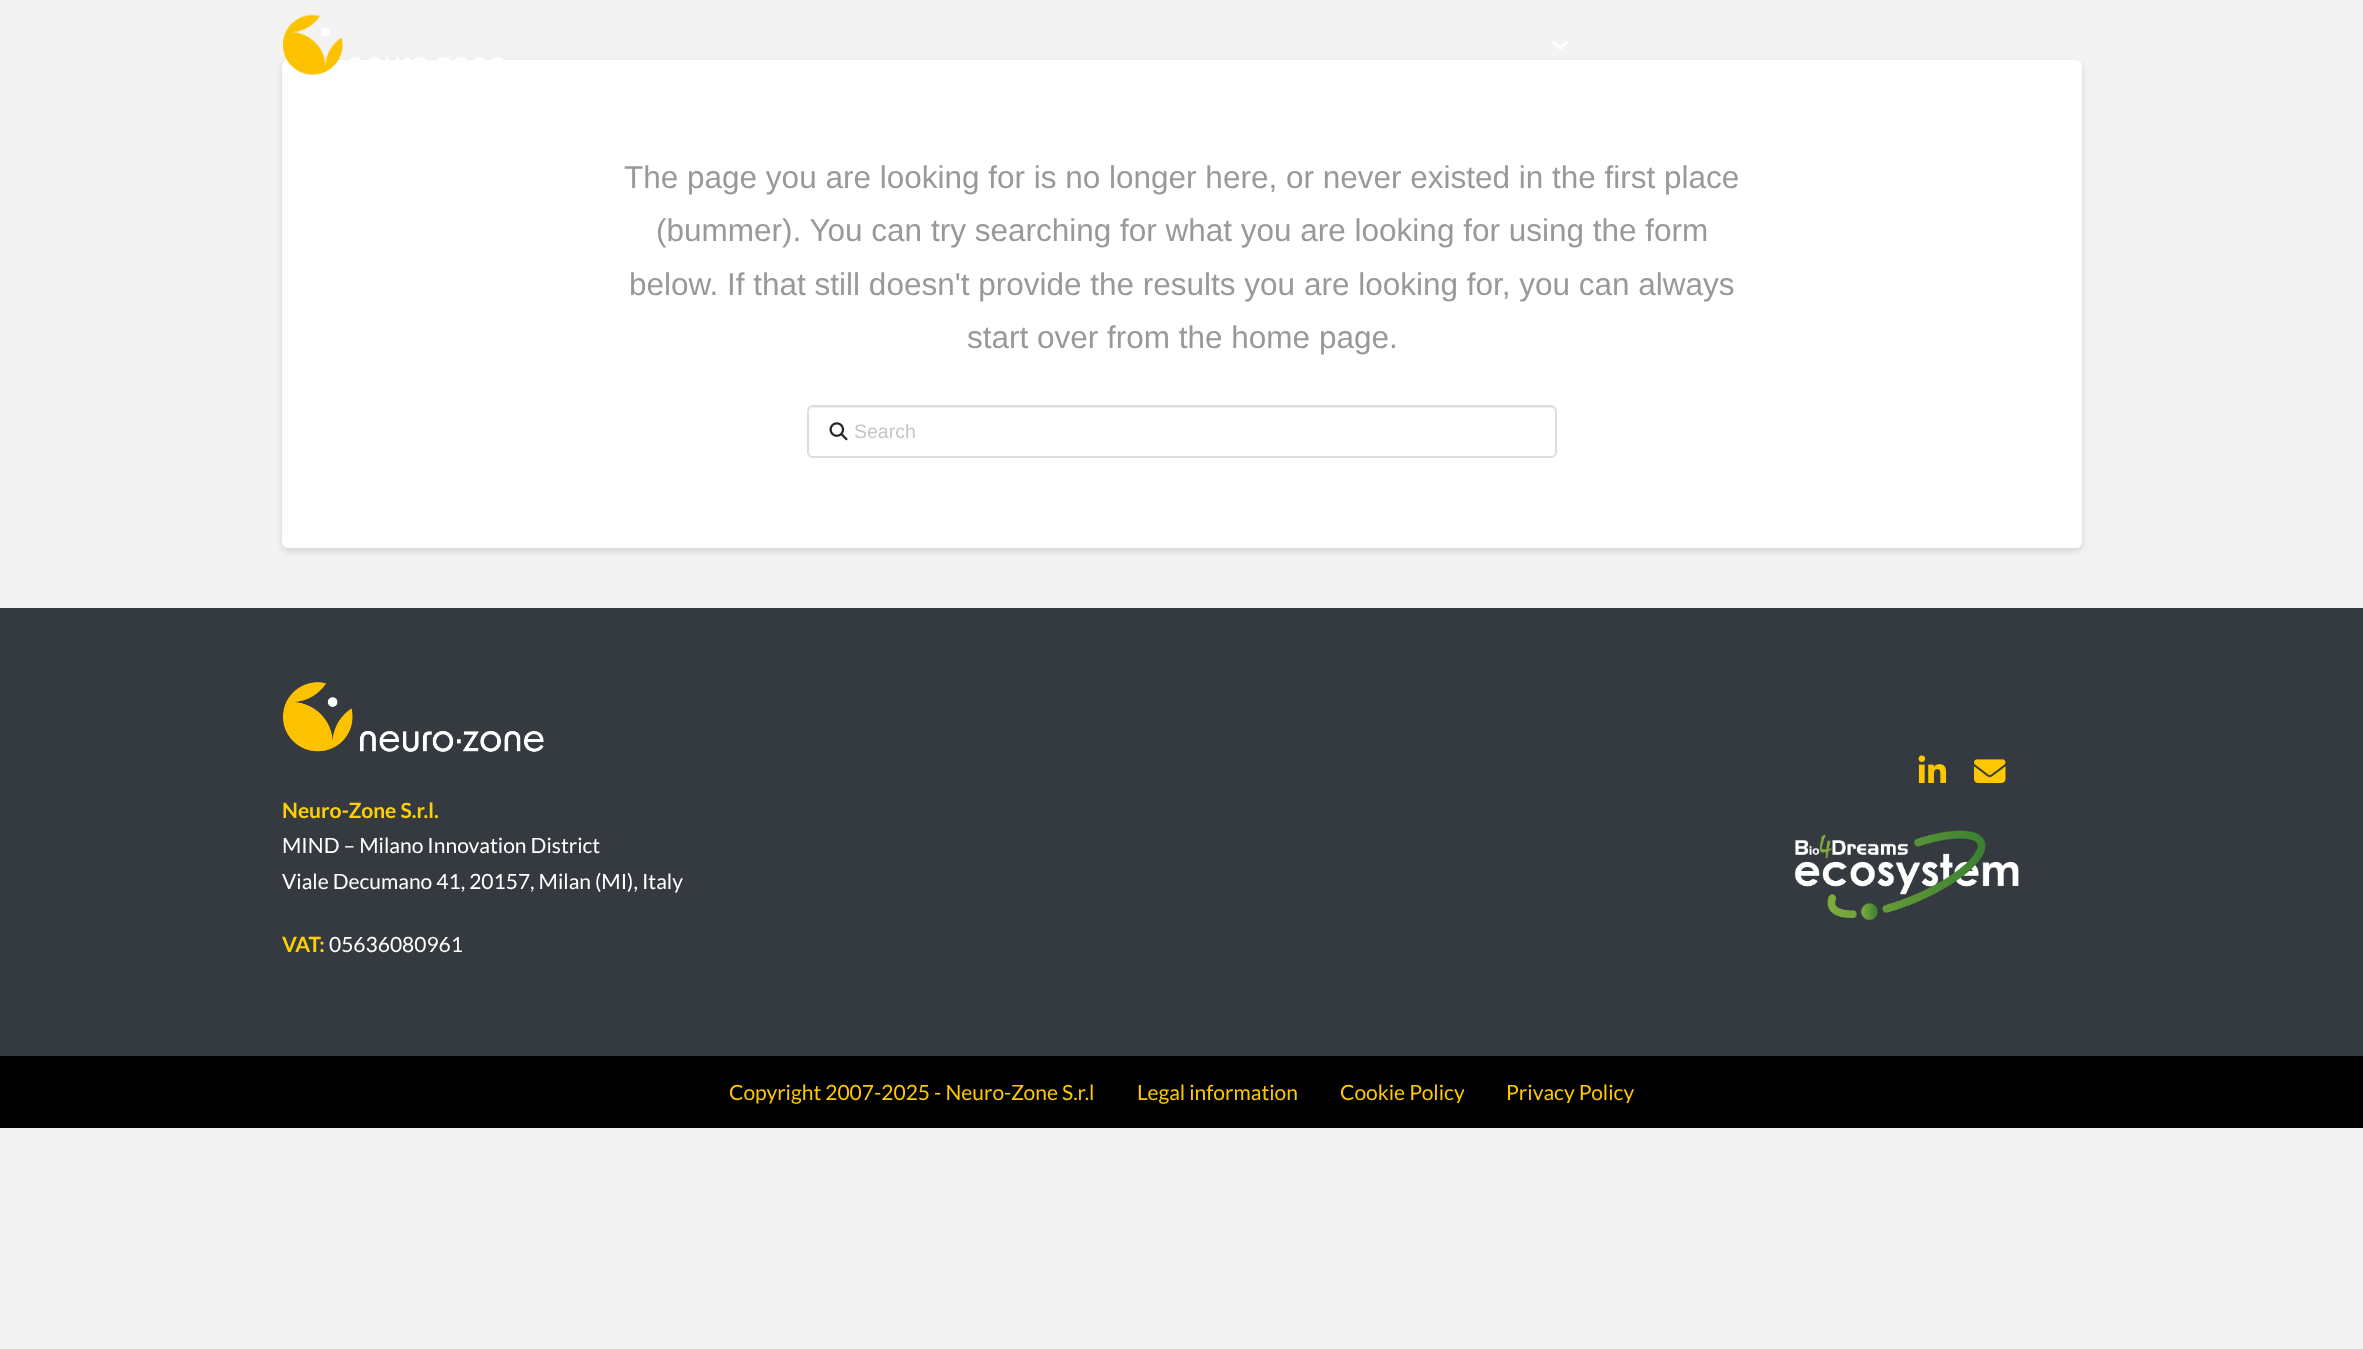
<!DOCTYPE html>
<meta charset="utf-8">
<style>body { margin: 0 } canvas { display: block }</style>
<canvas id="canvas" width="2363" height="1349"></canvas>
<script type="module">
  const canvas = document.getElementById("canvas");
  const ctx = canvas.getContext("2d");
  ctx.miterLimit = 4;
  ctx.fontKerning = "normal";
  async function loadImage(src) {
    const img = new Image();
    img.src = src;
    await img.decode();
    return img;
  }

  ctx.fillStyle = "#f3f3f3";
  ctx.fillRect(0, 0, 2363, 1349);
  ctx.fillStyle = "rgba(0, 0, 0, 0.13)";
  ctx.filter = "blur(3.5px)";
  ctx.beginPath();
  ctx.roundRect(282, 63, 1800, 488, 6);
  ctx.fill();
  ctx.filter = "none";
  ctx.fillStyle = "#ffffff";
  ctx.beginPath();
  ctx.roundRect(282, 60, 1800, 488, 6);
  ctx.fill();
  ctx.drawImage(await loadImage("img1.png"), 282, 14, 222, 62);
  ctx.drawImage(await loadImage("img2.png"), 1552, 41, 16, 9);
  ctx.font = "31.5px Liberation Sans";
  ctx.fillStyle = "#999999";
  ctx.fillText("The page you are looking for is no longer here, or never existed in the first place", 624, 188);
  ctx.fillText("(bummer). You can try searching for what you are looking for using the form", 656, 241);
  ctx.fillText("below. If that still doesn't provide the results you are looking for, you can always", 629, 295);
  ctx.fillText("start over from the home page.", 967, 348);
  ctx.fillStyle = "#ececec";
  ctx.beginPath();
  ctx.moveTo(813, 408);
  ctx.lineTo(1551, 408);
  ctx.bezierCurveTo(1553, 408, 1556, 410, 1556, 412);
  ctx.bezierCurveTo(1556, 409, 1554, 407, 1551, 407);
  ctx.lineTo(814, 407);
  ctx.bezierCurveTo(812, 407, 811, 408, 810, 409);
  ctx.closePath();
  ctx.fill();
  ctx.beginPath();
  ctx.roundRect(808, 406, 748, 51, 5);
  ctx.strokeStyle = "#dddddd";
  ctx.lineWidth = 2;
  ctx.stroke();
  ctx.drawImage(await loadImage("img3.png"), 829, 422, 19, 19);
  ctx.font = "19.5px Liberation Sans";
  ctx.fillStyle = "#c5c5c5";
  ctx.fillText("Search", 854, 438);
  ctx.fillStyle = "#343a40";
  ctx.fillRect(0, 608, 2363, 448);
  ctx.drawImage(await loadImage("img4.png"), 282, 682, 262, 70);
  ctx.font = "bold 21px Lato";
  ctx.fillStyle = "#fccf07";
  ctx.fillText("Neuro-Zone S.r.l.", 282, 818);
  ctx.font = "21px Lato";
  ctx.fillStyle = "#ffffff";
  ctx.fillText("MIND – Milano Innovation District", 282, 853);
  ctx.fillText("Viale Decumano 41, 20157, Milan (MI), Italy", 282, 889);
  ctx.font = "bold 21px Lato";
  ctx.fillStyle = "#fccf07";
  ctx.fillText("VAT:", 282, 952);
  ctx.font = "21px Lato";
  ctx.fillStyle = "#ffffff";
  ctx.fillText("05636080961", 329, 952);
  ctx.drawImage(await loadImage("img5.png"), 1918, 755, 29, 28);
  ctx.drawImage(await loadImage("img6.png"), 1974, 759, 32, 24);
  ctx.drawImage(await loadImage("img7.png"), 1794, 830, 225, 91);
  ctx.fillStyle = "#000000";
  ctx.fillRect(0, 1056, 2363, 72);
  ctx.fillStyle = "#ffc700";
  ctx.fillText("Copyright 2007-2025 - Neuro-Zone S.r.l", 729, 1100);
  ctx.fillText("Legal information", 1137, 1100);
  ctx.save();
  ctx.beginPath();
  ctx.rect(1340, 1082, 124, 21);
  ctx.clip();
  ctx.fillText("Cookie Policy", 1340, 1100);
  ctx.restore();
  ctx.save();
  ctx.beginPath();
  ctx.rect(1506, 1082, 129, 21);
  ctx.clip();
  ctx.fillText("Privacy Policy", 1506, 1100);
  ctx.restore();
</script>
